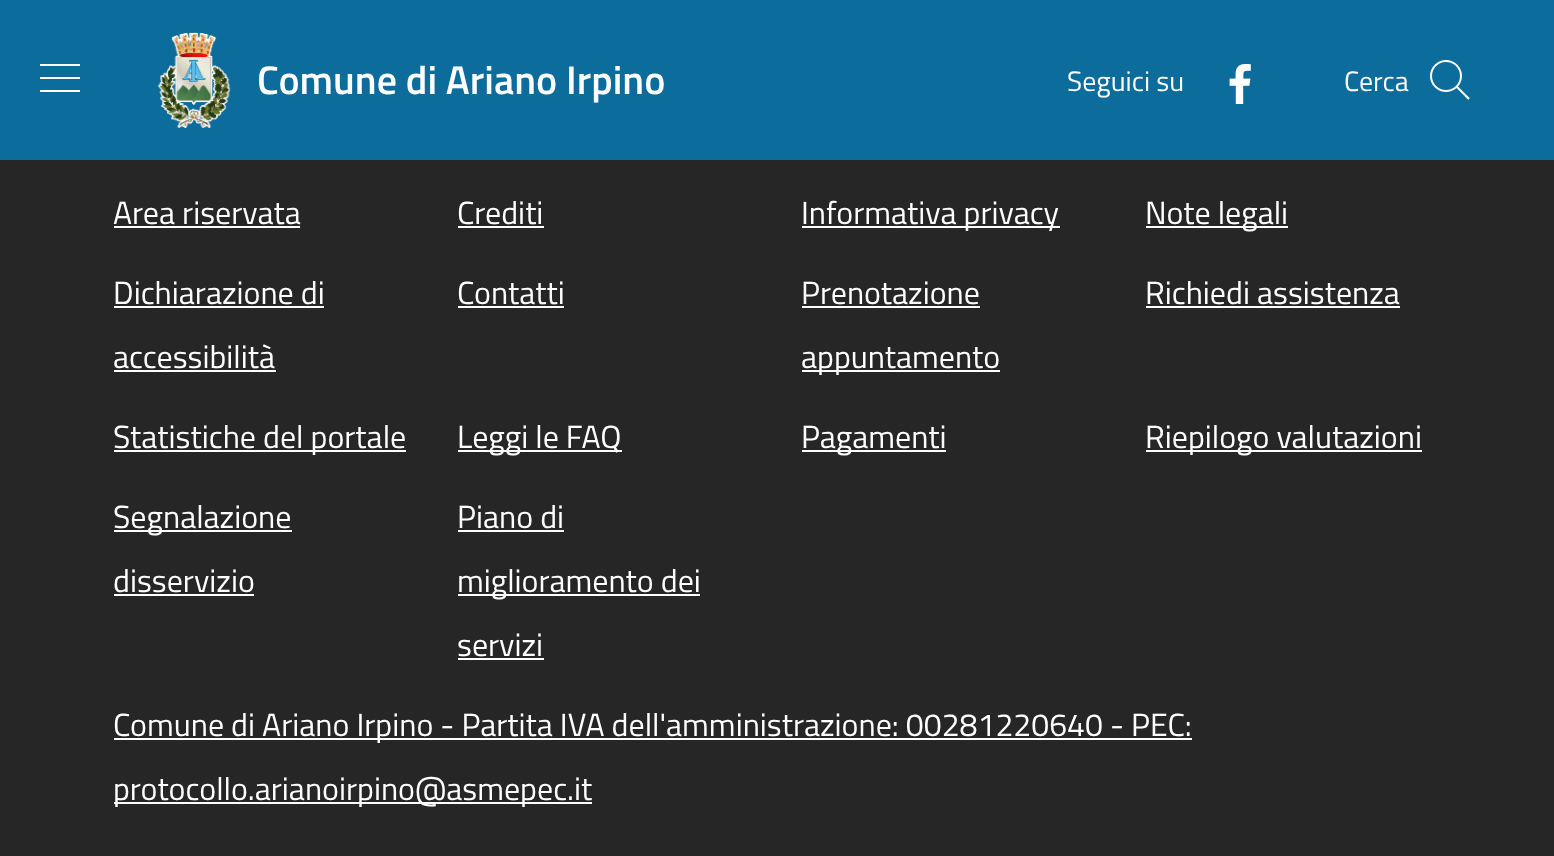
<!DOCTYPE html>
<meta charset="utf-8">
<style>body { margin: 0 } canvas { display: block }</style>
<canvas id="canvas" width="1554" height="856"></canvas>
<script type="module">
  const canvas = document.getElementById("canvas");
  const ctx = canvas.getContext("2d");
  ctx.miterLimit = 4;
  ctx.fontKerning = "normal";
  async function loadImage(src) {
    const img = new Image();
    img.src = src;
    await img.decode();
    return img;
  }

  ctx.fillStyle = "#262626";
  ctx.fillRect(0, 0, 1554, 856);
  ctx.fillStyle = "#0c6c9c";
  ctx.fillRect(0, 0, 1554, 160);
  ctx.fillStyle = "#ffffff";
  ctx.beginPath();
  ctx.moveTo(80, 64);
  ctx.lineTo(80, 66);
  ctx.lineTo(40, 66);
  ctx.lineTo(40, 64);
  ctx.closePath();
  ctx.moveTo(40, 79);
  ctx.lineTo(80, 79);
  ctx.lineTo(80, 77);
  ctx.lineTo(40, 77);
  ctx.closePath();
  ctx.moveTo(40, 92);
  ctx.lineTo(80, 92);
  ctx.lineTo(80, 90);
  ctx.lineTo(40, 90);
  ctx.closePath();
  ctx.fill();
  ctx.drawImage(await loadImage("img1.png"), 157, 32, 74, 96);
  ctx.font = "600 40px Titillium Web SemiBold";
  ctx.fillText("Comune di Ariano Irpino", 257, 94);
  ctx.font = "28px Titillium Web";
  ctx.fillText("Seguici su", 1067, 91);
  ctx.drawImage(await loadImage("img2.png"), 1229, 64, 22, 40);
  ctx.fillText("Cerca", 1344, 91);
  ctx.drawImage(await loadImage("img3.png"), 1430, 60, 40, 40);
  ctx.font = "32px Titillium Web";
  ctx.fillText("Area riservata", 113, 224);
  ctx.fillRect(114, 226, 186, 2);
  ctx.fillText("Crediti", 457, 224);
  ctx.fillRect(458, 226, 86, 2);
  ctx.fillRect(802, 226, 258, 2);
  ctx.fillText("Informativa privacy", 801, 224);
  ctx.fillRect(1146, 226, 142, 2);
  ctx.fillText("Note legali", 1145, 224);
  ctx.fillText("Dichiarazione di", 113, 304);
  ctx.fillRect(114, 306, 210, 2);
  ctx.fillText("accessibilità", 113, 368);
  ctx.fillRect(114, 370, 162, 2);
  ctx.fillText("Contatti", 457, 304);
  ctx.fillRect(458, 306, 106, 2);
  ctx.fillText("Prenotazione", 801, 304);
  ctx.fillRect(802, 306, 178, 2);
  ctx.fillRect(802, 370, 198, 2);
  ctx.fillText("appuntamento", 801, 368);
  ctx.fillText("Richiedi assistenza", 1145, 304);
  ctx.fillRect(1146, 306, 254, 2);
  ctx.fillRect(114, 450, 292, 2);
  ctx.fillText("Statistiche del portale", 113, 448);
  ctx.fillRect(458, 450, 164, 2);
  ctx.fillText("Leggi le FAQ", 457, 448);
  ctx.fillRect(802, 450, 144, 2);
  ctx.fillText("Pagamenti", 801, 448);
  ctx.fillRect(1146, 450, 276, 2);
  ctx.fillText("Riepilogo valutazioni", 1145, 448);
  ctx.fillRect(114, 530, 178, 2);
  ctx.fillText("Segnalazione", 113, 528);
  ctx.fillText("disservizio", 113, 592);
  ctx.fillRect(114, 594, 140, 2);
  ctx.fillText("Piano di", 457, 528);
  ctx.fillRect(458, 530, 106, 2);
  ctx.fillRect(458, 594, 242, 2);
  ctx.fillText("miglioramento dei", 457, 592);
  ctx.fillText("servizi", 457, 656);
  ctx.fillRect(458, 658, 86, 2);
  ctx.fillRect(114, 738, 1078, 2);
  ctx.fillText("Comune di Ariano Irpino - Partita IVA dell'amministrazione: 00281220640 - PEC:", 113, 736);
  ctx.fillRect(114, 802, 478, 2);
  ctx.fillText("protocollo.arianoirpino@asmepec.it", 113, 800);
</script>
